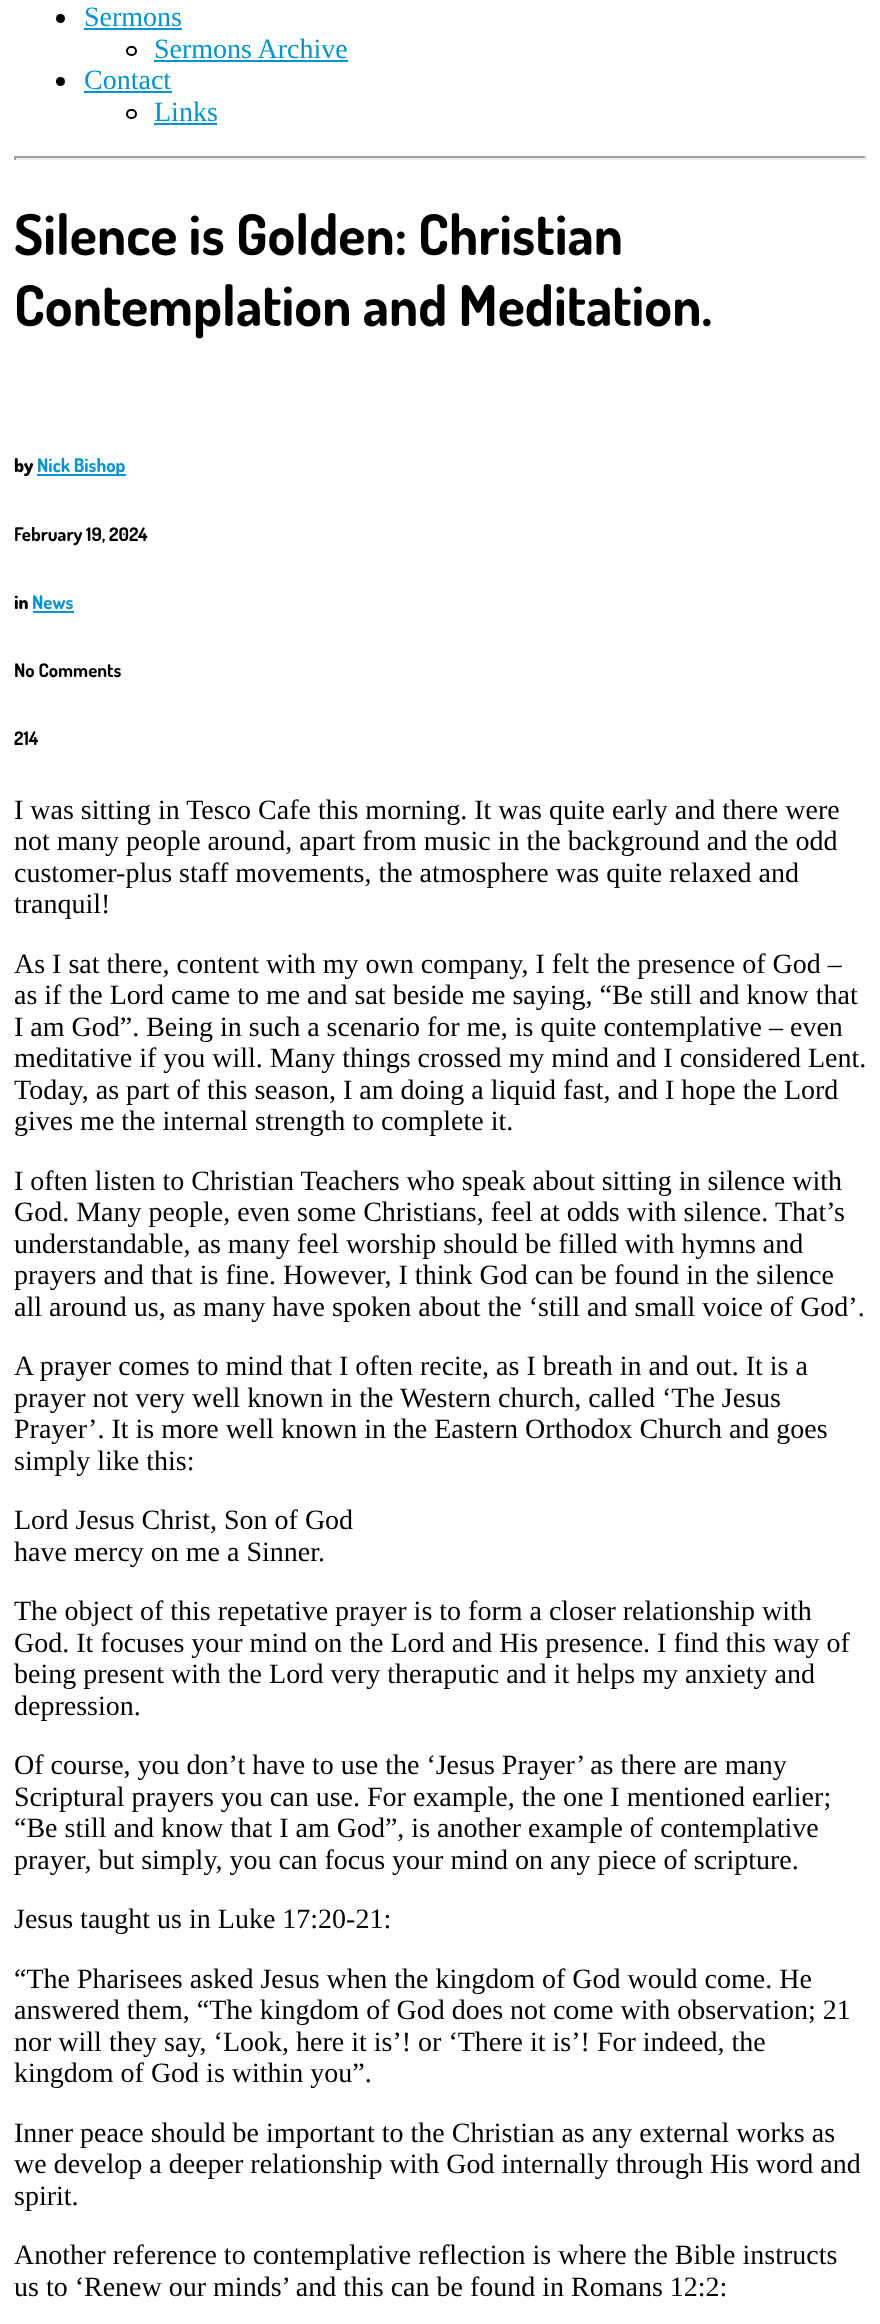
<!DOCTYPE html>
<meta charset="utf-8">
<style>body { margin: 0 } canvas { display: block }</style>
<canvas id="canvas" width="880" height="2324"></canvas>
<script type="module">
  const canvas = document.getElementById("canvas");
  const ctx = canvas.getContext("2d");
  ctx.miterLimit = 4;
  ctx.fontKerning = "normal";

  ctx.fillStyle = "#ffffff";
  ctx.fillRect(0, 0, 880, 2324);
  ctx.fillStyle = "#000000";
  ctx.beginPath();
  ctx.arc(60.5, 18.5, 4.5, 0, Math.PI * 2);
  ctx.fill();
  ctx.font = "28px Liberation Serif";
  ctx.fillStyle = "#0093d0";
  ctx.fillText("Sermons", 84, 26);
  ctx.fillRect(84, 28, 98, 2);
  ctx.beginPath();
  ctx.roundRect(127, 47, 9, 8, 4);
  ctx.strokeStyle = "#000000";
  ctx.lineWidth = 2;
  ctx.stroke();
  ctx.fillText("Sermons Archive", 154, 58);
  ctx.fillRect(154, 60, 194, 2);
  ctx.fillStyle = "#000000";
  ctx.beginPath();
  ctx.arc(60.5, 81.5, 4.5, 0, Math.PI * 2);
  ctx.fill();
  ctx.fillStyle = "#0093d0";
  ctx.fillText("Contact", 84, 89);
  ctx.fillRect(84, 91, 88, 2);
  ctx.beginPath();
  ctx.roundRect(127, 110, 9, 8, 4);
  ctx.stroke();
  ctx.fillText("Links", 154, 121);
  ctx.fillRect(154, 123, 63, 2);
  ctx.fillStyle = "#9f9f9f";
  ctx.fillRect(14, 156, 852, 2);
  ctx.fillStyle = "#eeeeee";
  ctx.fillRect(865, 156, 2, 4);
  ctx.fillRect(14, 158, 852, 2);
  ctx.fillStyle = "#9f9f9f";
  ctx.fillRect(14, 156, 2, 4);
  ctx.font = "bold 56px Dosis";
  ctx.fillStyle = "#000000";
  ctx.fillText("Silence is Golden: Christian", 14, 255);
  ctx.fillText("Contemplation and Meditation.", 14, 326);
  ctx.font = "800 18.75px Dosis";
  ctx.fillText("by", 14, 472);
  ctx.fillStyle = "#0093d0";
  ctx.fillRect(37, 474, 89, 2);
  ctx.font = "bold 18.75px Dosis";
  ctx.fillText("Nick Bishop", 37, 472);
  ctx.fillStyle = "#000000";
  ctx.fillText("February 19, 2024", 14, 541);
  ctx.font = "800 18.75px Dosis";
  ctx.fillText("in", 14, 609);
  ctx.font = "bold 18.75px Dosis";
  ctx.fillStyle = "#0093d0";
  ctx.fillText("News", 32, 609);
  ctx.fillRect(33, 611, 41, 2);
  ctx.fillStyle = "#000000";
  ctx.fillText("No Comments", 14, 677);
  ctx.fillText("214", 14, 745);
  ctx.font = "28px Liberation Serif";
  ctx.fillText("I was sitting in Tesco Cafe this morning. It was quite early and there were", 14, 819);
  ctx.fillText("not many people around, apart from music in the background and the odd", 14, 850);
  ctx.fillText("customer-plus staff movements, the atmosphere was quite relaxed and", 14, 882);
  ctx.fillText("tranquil!", 14, 913);
  ctx.fillText("As I sat there, content with my own company, I felt the presence of God –", 14, 973);
  ctx.fillText("as if the Lord came to me and sat beside me saying, “Be still and know that", 14, 1004);
  ctx.fillText("I am God”. Being in such a scenario for me, is quite contemplative – even", 14, 1036);
  ctx.fillText("meditative if you will. Many things crossed my mind and I considered Lent.", 14, 1067);
  ctx.fillText("Today, as part of this season, I am doing a liquid fast, and I hope the Lord", 14, 1099);
  ctx.fillText("gives me the internal strength to complete it.", 14, 1130);
  ctx.fillText("I often listen to Christian Teachers who speak about sitting in silence with", 14, 1190);
  ctx.fillText("God. Many people, even some Christians, feel at odds with silence.", 14, 1221);
  ctx.fillText("That’s", 775, 1221);
  ctx.fillText("understandable, as many feel worship should be filled with hymns and", 14, 1253);
  ctx.fillText("prayers and that is fine. However, I think God can be found in the silence", 14, 1284);
  ctx.fillText("all around us, as many have spoken about the ‘still and small voice of God’.", 14, 1316);
  ctx.fillText("A prayer comes to mind that I often recite, as I breath in and out. It is a", 14, 1375);
  ctx.fillText("prayer not very well known in the Western church, called ‘The Jesus", 14, 1407);
  ctx.fillText("Prayer’. It is more well known in the Eastern Orthodox Church and goes", 14, 1438);
  ctx.fillText("simply like this:", 14, 1470);
  ctx.fillText("Lord Jesus Christ, Son of God", 14, 1529);
  ctx.fillText("have mercy on me a Sinner.", 14, 1561);
  ctx.fillText("The object of this repetative prayer is to form a closer relationship with", 14, 1620);
  ctx.fillText("God. It focuses your mind on the Lord and His presence. I find this way of", 14, 1652);
  ctx.fillText("being present with the Lord very theraputic and it helps my anxiety and", 14, 1683);
  ctx.fillText("depression.", 14, 1715);
  ctx.fillText("Of course, you don’t have to use the ‘Jesus Prayer’ as there are many", 14, 1774);
  ctx.fillText("Scriptural prayers you can use. For example, the one I mentioned earlier;", 14, 1806);
  ctx.fillText("“Be still and know that I am God”, is another example of contemplative", 14, 1837);
  ctx.fillText("prayer, but simply, you can focus your mind on any piece of scripture.", 14, 1869);
  ctx.fillText("Jesus taught us in Luke 17:20-21:", 14, 1928);
  ctx.fillText("“The Pharisees asked Jesus when the kingdom of God would come. He", 14, 1988);
  ctx.fillText("answered them, “The kingdom of God does not come with observation; 21", 14, 2019);
  ctx.fillText("nor will they say, ‘Look, here it is’! or ‘There it is’! For indeed, the", 14, 2051);
  ctx.fillText("kingdom of God is within you”.", 14, 2082);
  ctx.fillText("Inner peace should be important to the Christian as any external works as", 14, 2142);
  ctx.fillText("we develop a deeper relationship with God internally through His word and", 14, 2173);
  ctx.fillText("spirit.", 14, 2205);
  ctx.fillText("Another reference to contemplative reflection is where the Bible instructs", 14, 2264);
  ctx.fillText("us to ‘Renew our minds’ and this can be found in Romans 12:2:", 14, 2296);
</script>
